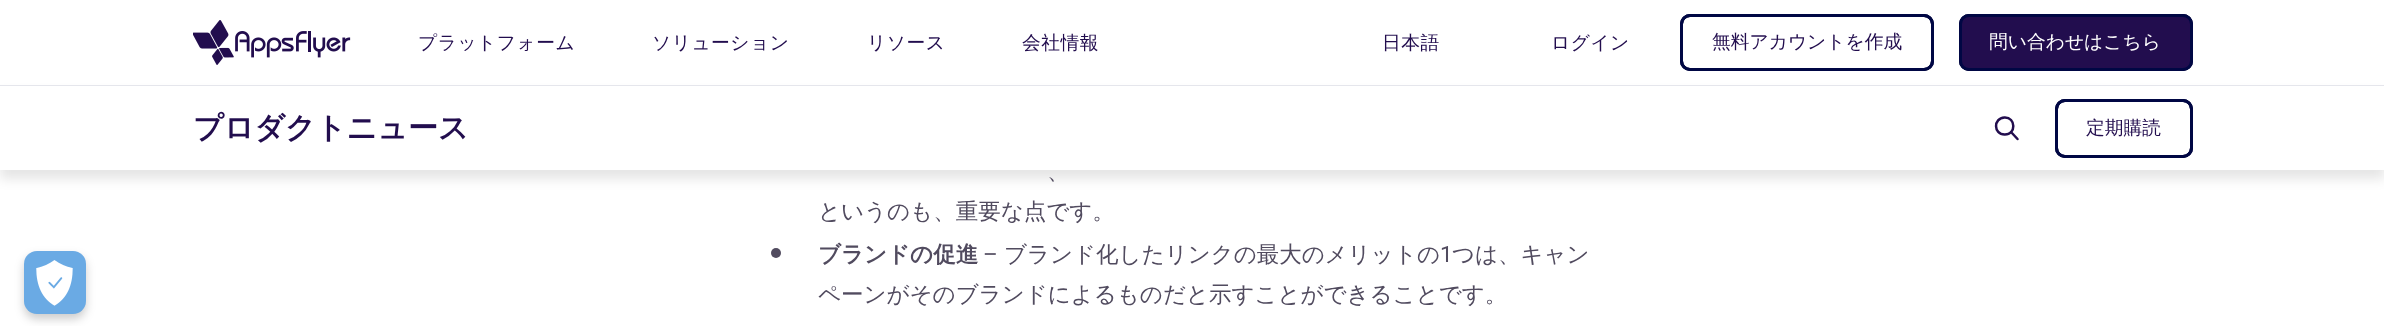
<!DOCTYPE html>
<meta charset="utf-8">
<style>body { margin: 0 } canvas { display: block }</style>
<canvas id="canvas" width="2384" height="326"></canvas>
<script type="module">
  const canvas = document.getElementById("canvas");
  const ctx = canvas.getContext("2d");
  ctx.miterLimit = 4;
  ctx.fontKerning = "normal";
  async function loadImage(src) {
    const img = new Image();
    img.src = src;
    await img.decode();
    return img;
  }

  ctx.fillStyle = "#ffffff";
  ctx.fillRect(0, 0, 2384, 326);
  ctx.drawImage(await loadImage("img1.png"), 193, 20, 158, 45);
  ctx.letterSpacing = "0.5px";
  ctx.font = "500 18.75px WenQuanYi Zen Hei";
  ctx.fillStyle = "#220d4e";
  ctx.fillText("プラットフォーム", 418, 49);
  ctx.fillText("ソリューション", 652, 49);
  ctx.fillText("リソース", 867, 49);
  ctx.fillText("会社情報", 1022, 49);
  ctx.fillText("日本語", 1382, 49);
  ctx.fillText("ログイン", 1551, 49);
  ctx.beginPath();
  ctx.roundRect(1681.5, 15.5, 251, 54, 8.5);
  ctx.strokeStyle = "#514b5f";
  ctx.lineWidth = 3;
  ctx.stroke();
  ctx.beginPath();
  ctx.roundRect(1681.5, 15.5, 251, 54, 8.5);
  ctx.strokeStyle = "#000744";
  ctx.stroke();
  ctx.beginPath();
  ctx.roundRect(1681.5, 15.5, 251, 54, 8.5);
  ctx.stroke();
  ctx.letterSpacing = "0px";
  ctx.fillText("無料アカウントを作成", 1712, 48);
  ctx.beginPath();
  ctx.roundRect(1960.5, 15.5, 231, 54, 8.5);
  ctx.strokeStyle = "#514b5f";
  ctx.stroke();
  ctx.beginPath();
  ctx.roundRect(1960.5, 15.5, 231, 54, 8.5);
  ctx.strokeStyle = "#000744";
  ctx.stroke();
  ctx.beginPath();
  ctx.roundRect(1960.5, 15.5, 231, 54, 8.5);
  ctx.fill();
  ctx.stroke();
  ctx.fillStyle = "#ffffff";
  ctx.fillText("問い合わせはこちら", 1989, 48);
  ctx.fillStyle = "rgba(0, 0, 0, 0.1)";
  ctx.filter = "blur(6px)";
  ctx.beginPath();
  ctx.rect(0, 94, 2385, 85);
  ctx.fill();
  ctx.filter = "none";
  ctx.fillStyle = "#ffffff";
  ctx.fillRect(0, 86, 2384, 84);
  ctx.fillStyle = "#e5e6ec";
  ctx.fillRect(0, 85, 2384, 1);
  ctx.font = "bold 30px WenQuanYi Zen Hei";
  ctx.fillStyle = "#220d4e";
  ctx.fillText("プロダクトニュース", 193, 138);
  ctx.beginPath();
  ctx.moveTo(2004.5, 134.5);
  ctx.bezierCurveTo(2016.5, 135, 2016, 117, 2004.5, 117.5);
  ctx.bezierCurveTo(1993, 118, 1993.5, 134.5, 2004.5, 134.5);
  ctx.closePath();
  ctx.moveTo(2017.5, 139);
  ctx.lineTo(2011, 132);
  ctx.strokeStyle = "#220d4e";
  ctx.lineWidth = 2.5;
  ctx.lineCap = "round";
  ctx.lineJoin = "round";
  ctx.stroke();
  ctx.beginPath();
  ctx.roundRect(2056.5, 100.5, 135, 56, 8.5);
  ctx.strokeStyle = "#514b5f";
  ctx.lineWidth = 3;
  ctx.lineJoin = "miter";
  ctx.stroke();
  ctx.beginPath();
  ctx.roundRect(2056.5, 100.5, 135, 56, 8.5);
  ctx.strokeStyle = "#000744";
  ctx.stroke();
  ctx.beginPath();
  ctx.roundRect(2056.5, 100.5, 135, 56, 8.5);
  ctx.stroke();
  ctx.font = "500 18.75px WenQuanYi Zen Hei";
  ctx.fillText("定期購読", 2086, 134);
  ctx.fillStyle = "rgba(0, 0, 0, 0.2)";
  ctx.filter = "blur(5px)";
  ctx.beginPath();
  ctx.roundRect(24, 256, 62, 63, 13);
  ctx.fill();
  ctx.filter = "none";
  ctx.fillStyle = "#6aaae4";
  ctx.beginPath();
  ctx.roundRect(24, 251, 62, 63, 13);
  ctx.fill();
  ctx.drawImage(await loadImage("img2.png"), 36, 260, 37, 46);
  ctx.font = "500 22.5px WenQuanYi Zen Hei";
  ctx.fillStyle = "#514b5f";
  ctx.fillText("、", 1047, 179);
  ctx.fillText("というのも、重要な点です。", 818, 219);
  ctx.beginPath();
  ctx.arc(776, 253, 5, 0, Math.PI * 2);
  ctx.fill();
  ctx.font = "bold 22.5px WenQuanYi Zen Hei";
  ctx.fillText("ブランドの促進", 818, 262);
  ctx.font = "22.5px Roboto";
  ctx.fillText("–", 983, 262);
  ctx.font = "500 22.5px WenQuanYi Zen Hei";
  ctx.fillText("ブランド化したリンクの最大のメリットの", 1004, 262);
  ctx.font = "22.5px Roboto";
  ctx.fillText("1", 1440, 262);
  ctx.font = "500 22.5px WenQuanYi Zen Hei";
  ctx.fillText("つは、キャン", 1452, 262);
  ctx.fillText("ペーンがそのブランドによるものだと示すことができることです。", 818, 302);
</script>
